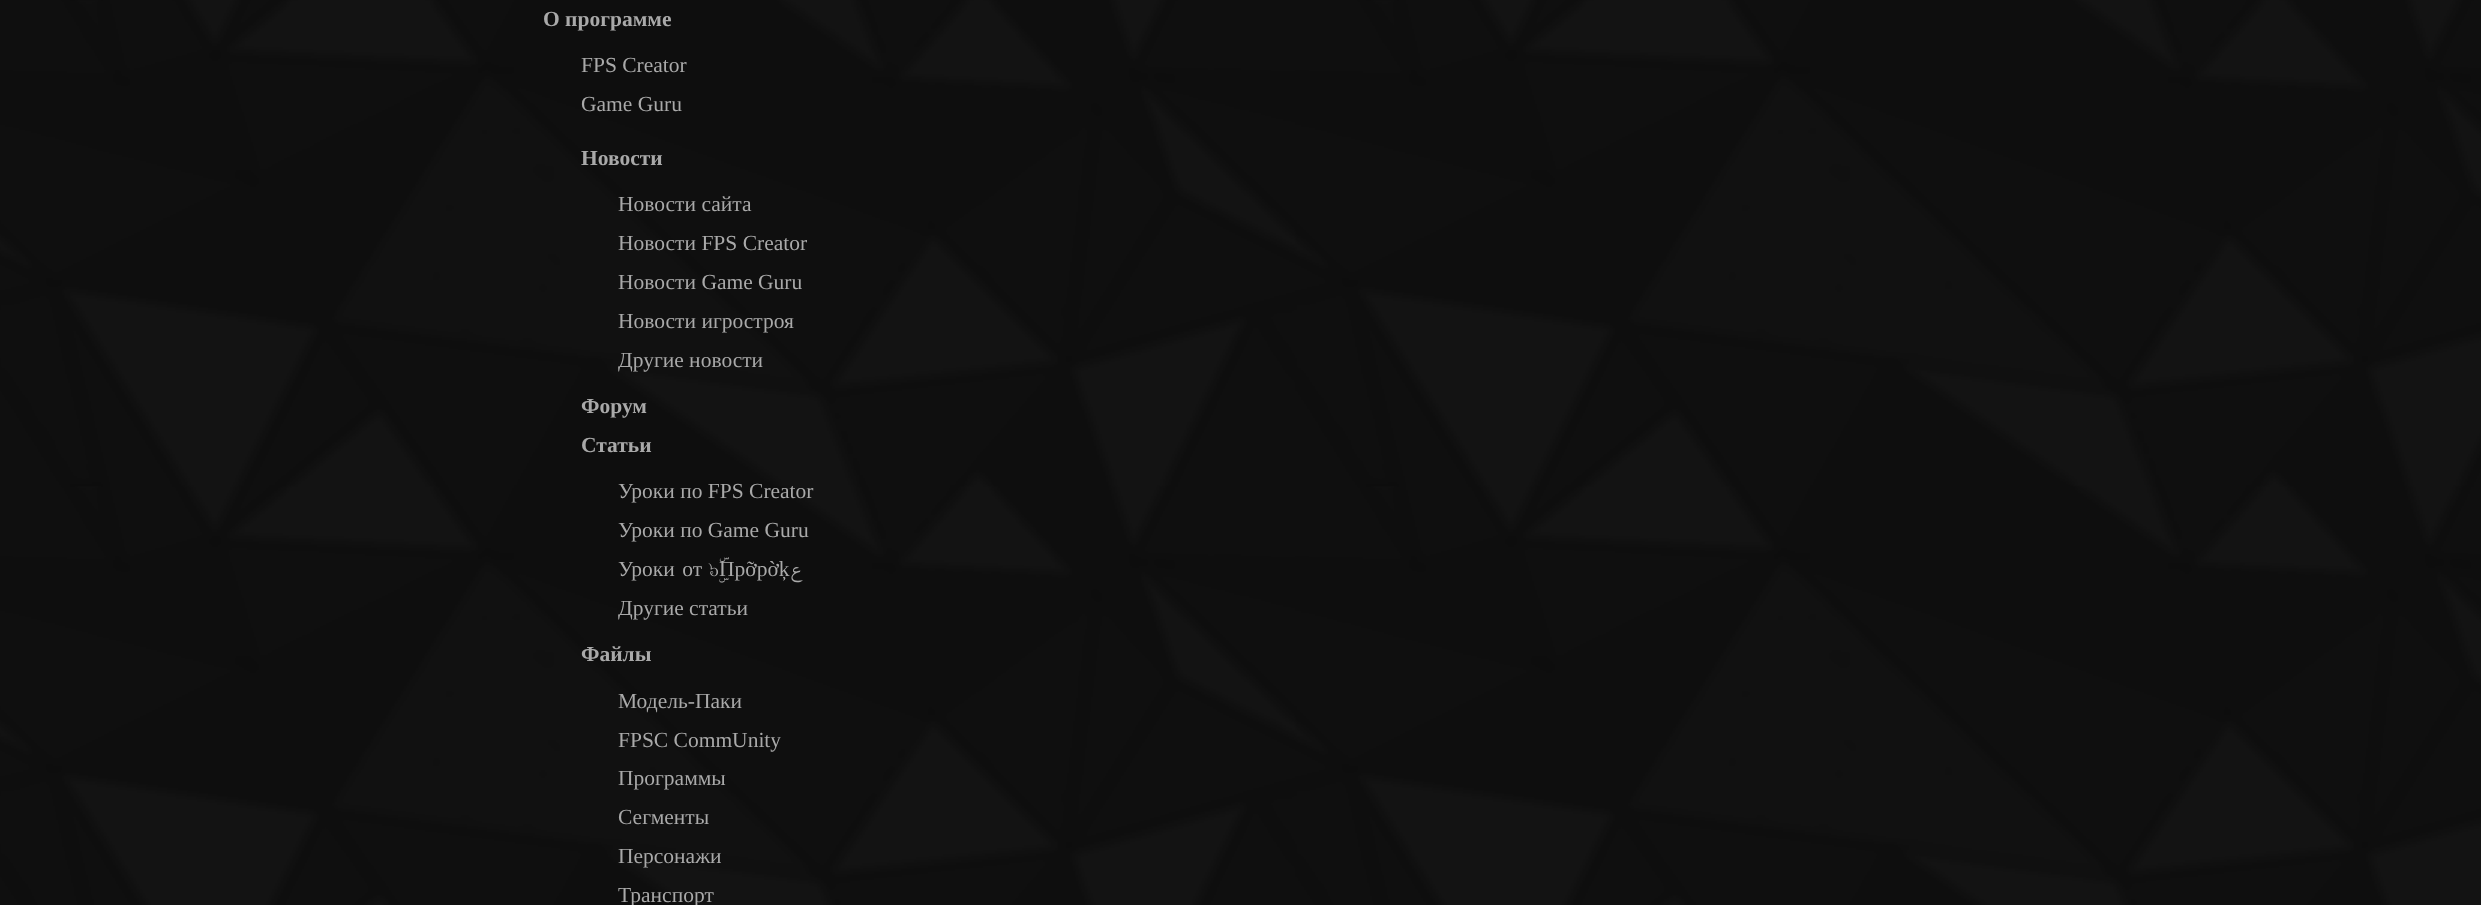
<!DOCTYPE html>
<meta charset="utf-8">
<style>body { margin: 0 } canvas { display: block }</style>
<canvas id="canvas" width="2481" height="905"></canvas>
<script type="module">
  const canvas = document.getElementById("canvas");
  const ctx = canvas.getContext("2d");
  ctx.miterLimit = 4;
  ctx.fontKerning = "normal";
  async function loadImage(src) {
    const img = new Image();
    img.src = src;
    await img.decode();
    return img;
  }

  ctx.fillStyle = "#ffffff";
  ctx.fillRect(0, 0, 2481, 905);
  ctx.drawImage(await loadImage("img1.png"), 0, 0, 2481, 905);
  ctx.font = "bold 21.5px Liberation Serif";
  ctx.fillStyle = "#a9a9a9";
  ctx.fillText("О программе", 543, 26);
  ctx.font = "21.5px Liberation Serif";
  ctx.fillText("FPS Creator", 581, 72);
  ctx.fillText("Game Guru", 581, 111);
  ctx.font = "bold 21.5px Liberation Serif";
  ctx.fillText("Новости", 581, 165);
  ctx.font = "21.5px Liberation Serif";
  ctx.fillText("Новости сайта", 618, 211);
  ctx.fillText("Новости FPS Creator", 618, 250);
  ctx.fillText("Новости Game Guru", 618, 289);
  ctx.fillText("Новости игростроя", 618, 328);
  ctx.fillText("Другие новости", 618, 367);
  ctx.font = "bold 21.5px Liberation Serif";
  ctx.fillText("Форум", 581, 413);
  ctx.fillText("Статьи", 581, 452);
  ctx.font = "21.5px Liberation Serif";
  ctx.fillText("Уроки по FPS Creator", 618, 498);
  ctx.fillText("Уроки по Game Guru", 618, 537);
  ctx.wordSpacing = "2px";
  ctx.fillText("Уроки от", 618, 576);
  ctx.wordSpacing = "0px";
  ctx.font = "21.5px FreeSerif";
  ctx.fillText("๖ۣۜ", 709, 576);
  ctx.font = "21.5px Liberation Serif";
  ctx.fillText("Пpỡpờķ", 719, 576);
  ctx.direction = "rtl";
  ctx.font = "21.5px FreeSerif";
  ctx.fillText("ع", 803, 576);
  ctx.direction = "ltr";
  ctx.font = "21.5px Liberation Serif";
  ctx.fillText("Другие статьи", 618, 615);
  ctx.font = "bold 21.5px Liberation Serif";
  ctx.fillText("Файлы", 581, 661);
  ctx.font = "21.5px Liberation Serif";
  ctx.fillText("Модель-Паки", 618, 708);
  ctx.fillText("FPSC CommUnity", 618, 747);
  ctx.fillText("Программы", 618, 785);
  ctx.fillText("Сегменты", 618, 824);
  ctx.fillText("Персонажи", 618, 863);
  ctx.fillText("Транспорт", 618, 902);
</script>
